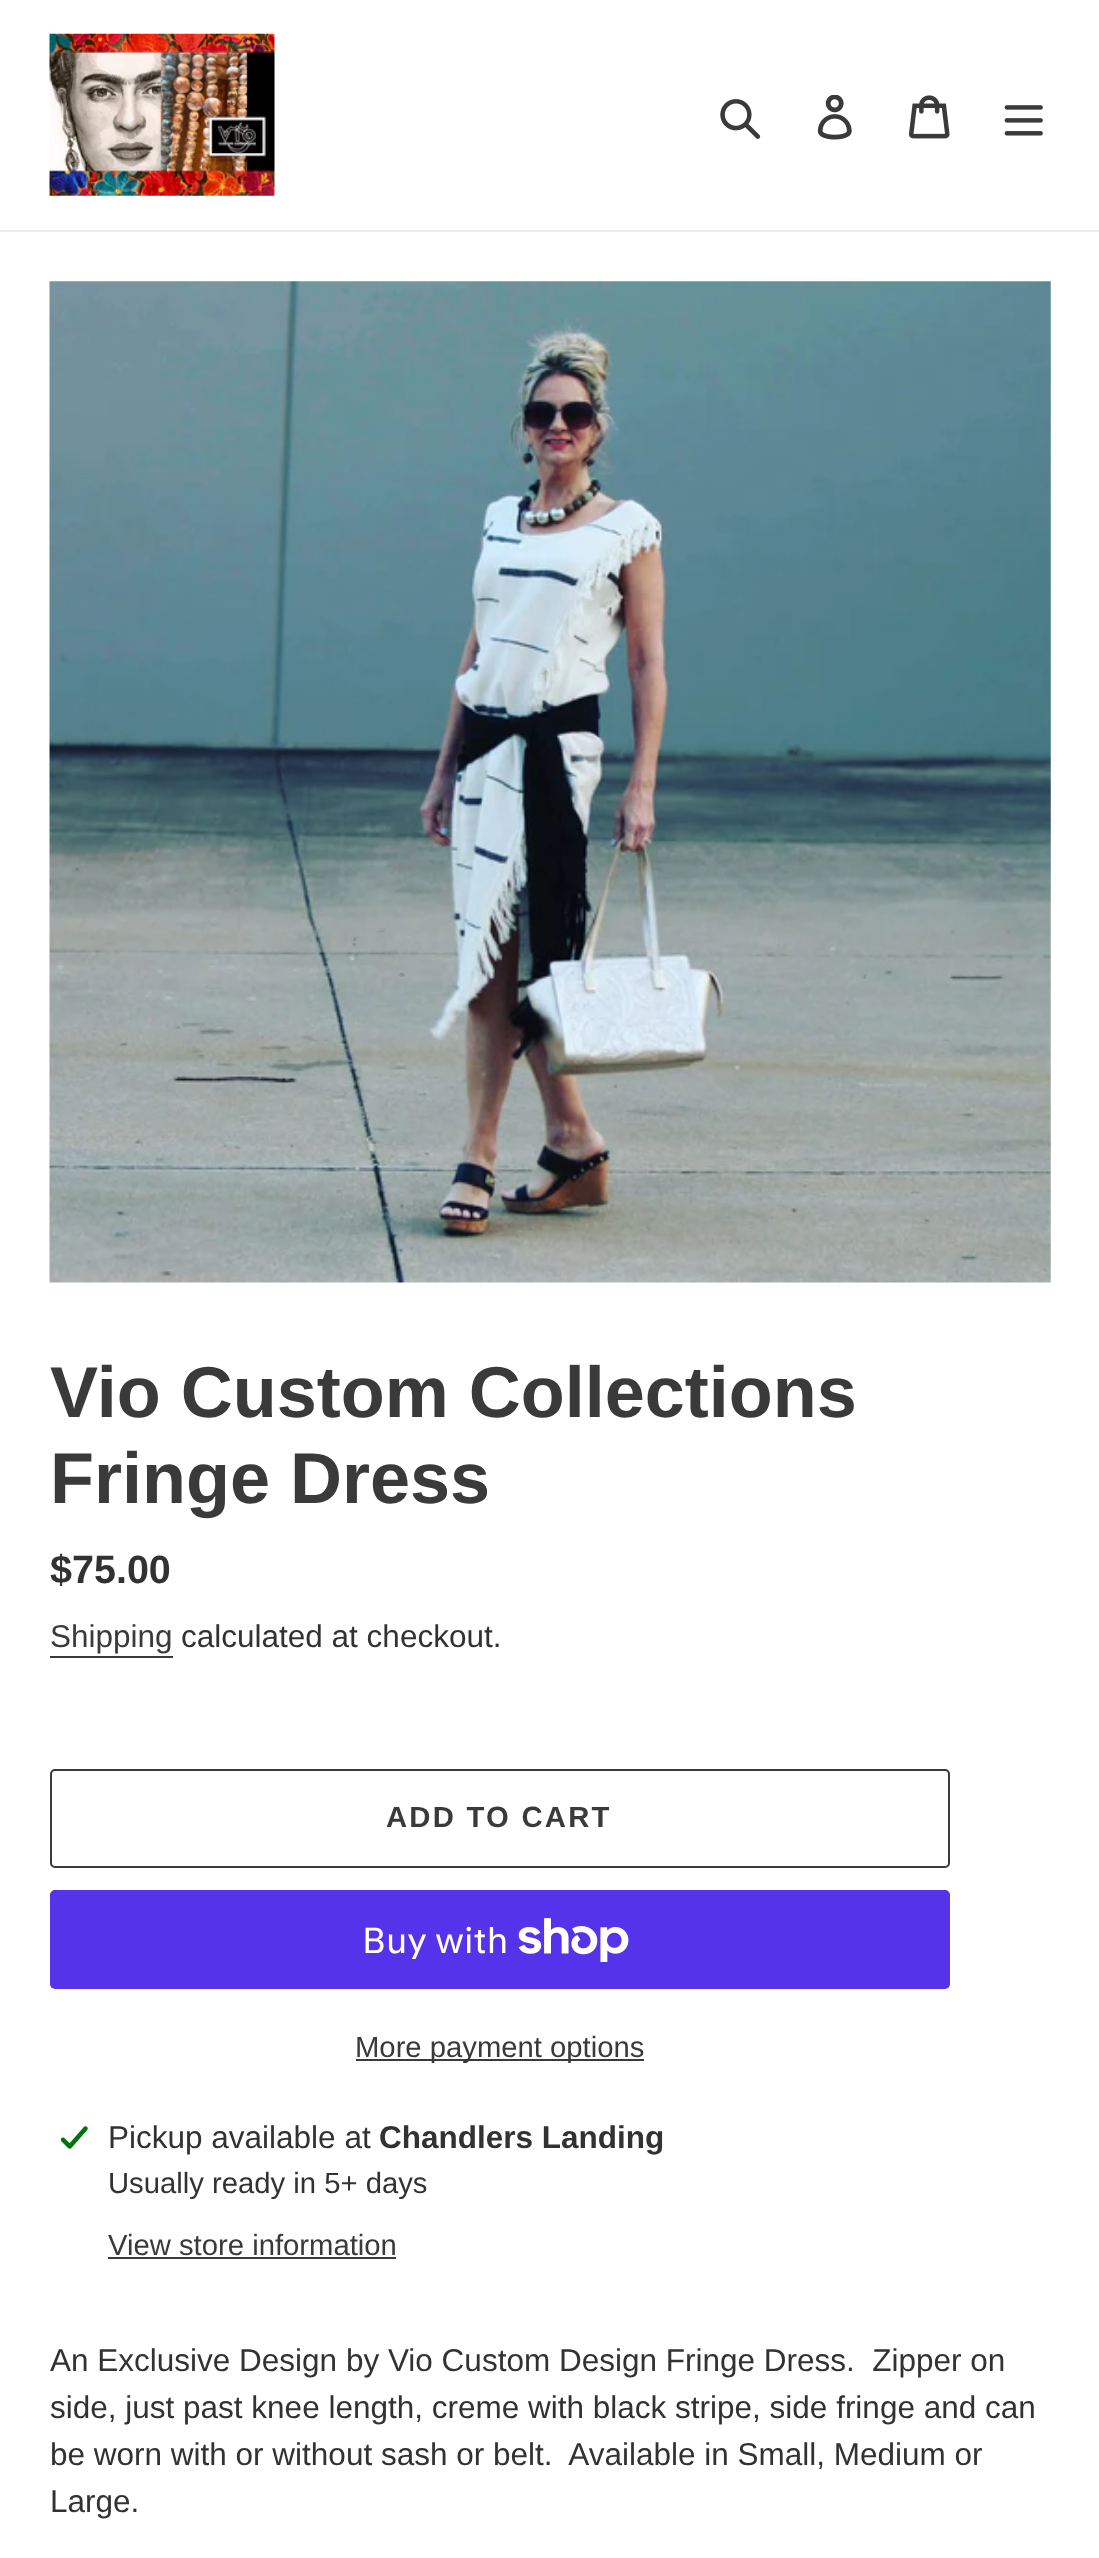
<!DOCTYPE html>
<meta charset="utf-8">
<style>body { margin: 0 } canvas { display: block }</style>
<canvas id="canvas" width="1099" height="2558"></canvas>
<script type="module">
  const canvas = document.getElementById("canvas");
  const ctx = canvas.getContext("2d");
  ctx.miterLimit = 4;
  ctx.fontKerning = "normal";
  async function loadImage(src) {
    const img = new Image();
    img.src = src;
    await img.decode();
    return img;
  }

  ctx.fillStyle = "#ffffff";
  ctx.fillRect(0, 0, 1099, 2558);
  ctx.fillStyle = "#ebebeb";
  ctx.fillRect(0, 230, 1099, 2);
  ctx.drawImage(await loadImage("img1.png"), 49, 33, 226, 163);
  ctx.drawImage(await loadImage("img2.png"), 720, 99, 41, 40);
  ctx.drawImage(await loadImage("img3.png"), 817, 95, 35, 45);
  ctx.drawImage(await loadImage("img4.png"), 909, 95, 41, 44);
  ctx.drawImage(await loadImage("img5.png"), 1004, 105, 39, 31);
  ctx.drawImage(await loadImage("img6.png"), 49, 281, 1002, 1002);
  ctx.font = "bold 72px Liberation Sans";
  ctx.fillStyle = "#3a3a3a";
  ctx.fillText("Vio Custom Collections", 50, 1417);
  ctx.fillText("Fringe Dress", 50, 1503);
  ctx.font = "bold 39.5px Liberation Sans";
  ctx.fillStyle = "#333232";
  ctx.fillText("$75.00", 50, 1583);
  ctx.font = "31.5px Liberation Sans";
  ctx.fillStyle = "#3a3a3a";
  ctx.fillText("Shipping", 50, 1647);
  ctx.fillRect(50, 1656, 123, 2);
  ctx.fillStyle = "#333232";
  ctx.fillText("calculated at checkout.", 181, 1647);
  ctx.beginPath();
  ctx.roundRect(51, 1770, 898, 97, 4);
  ctx.strokeStyle = "#3a3a3a";
  ctx.lineWidth = 2;
  ctx.stroke();
  ctx.letterSpacing = "2.25px";
  ctx.font = "bold 29.25px Liberation Sans";
  ctx.fillStyle = "#3a3a3a";
  ctx.fillText("ADD TO CART", 386, 1827);
  ctx.fillStyle = "#5433eb";
  ctx.beginPath();
  ctx.roundRect(50, 1890, 900, 99, 5);
  ctx.fill();
  ctx.letterSpacing = "0px";
  ctx.font = "36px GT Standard";
  ctx.fillStyle = "#ffffff";
  ctx.fillText("Buy with", 362, 1953);
  ctx.drawImage(await loadImage("img7.png"), 518, 1918, 111, 44);
  ctx.fillStyle = "#3a3a3a";
  ctx.fillRect(356, 2059, 288, 2);
  ctx.font = "29.25px Liberation Sans";
  ctx.fillText("More payment options", 355, 2057);
  ctx.drawImage(await loadImage("img8.png"), 61, 2126, 27, 23);
  ctx.font = "31.5px Liberation Sans";
  ctx.fillStyle = "#333232";
  ctx.fillText("Pickup available at", 108, 2148);
  ctx.font = "bold 31.5px Liberation Sans";
  ctx.fillText("Chandlers Landing", 379, 2148);
  ctx.font = "29.25px Liberation Sans";
  ctx.fillText("Usually ready in 5+ days", 108, 2193);
  ctx.fillStyle = "#3a3a3a";
  ctx.fillText("View store information", 108, 2255);
  ctx.fillRect(108, 2257, 288, 2);
  ctx.font = "31.5px Liberation Sans";
  ctx.fillStyle = "#333232";
  ctx.fillText("An Exclusive Design by Vio Custom Design Fringe Dress.  Zipper on", 50, 2371);
  ctx.fillText("side, just past knee length, creme with black stripe, side fringe and can", 50, 2418);
  ctx.fillText("be worn with or without sash or belt.  Available in Small, Medium or", 50, 2465);
  ctx.fillText("Large.", 50, 2512);
</script>
